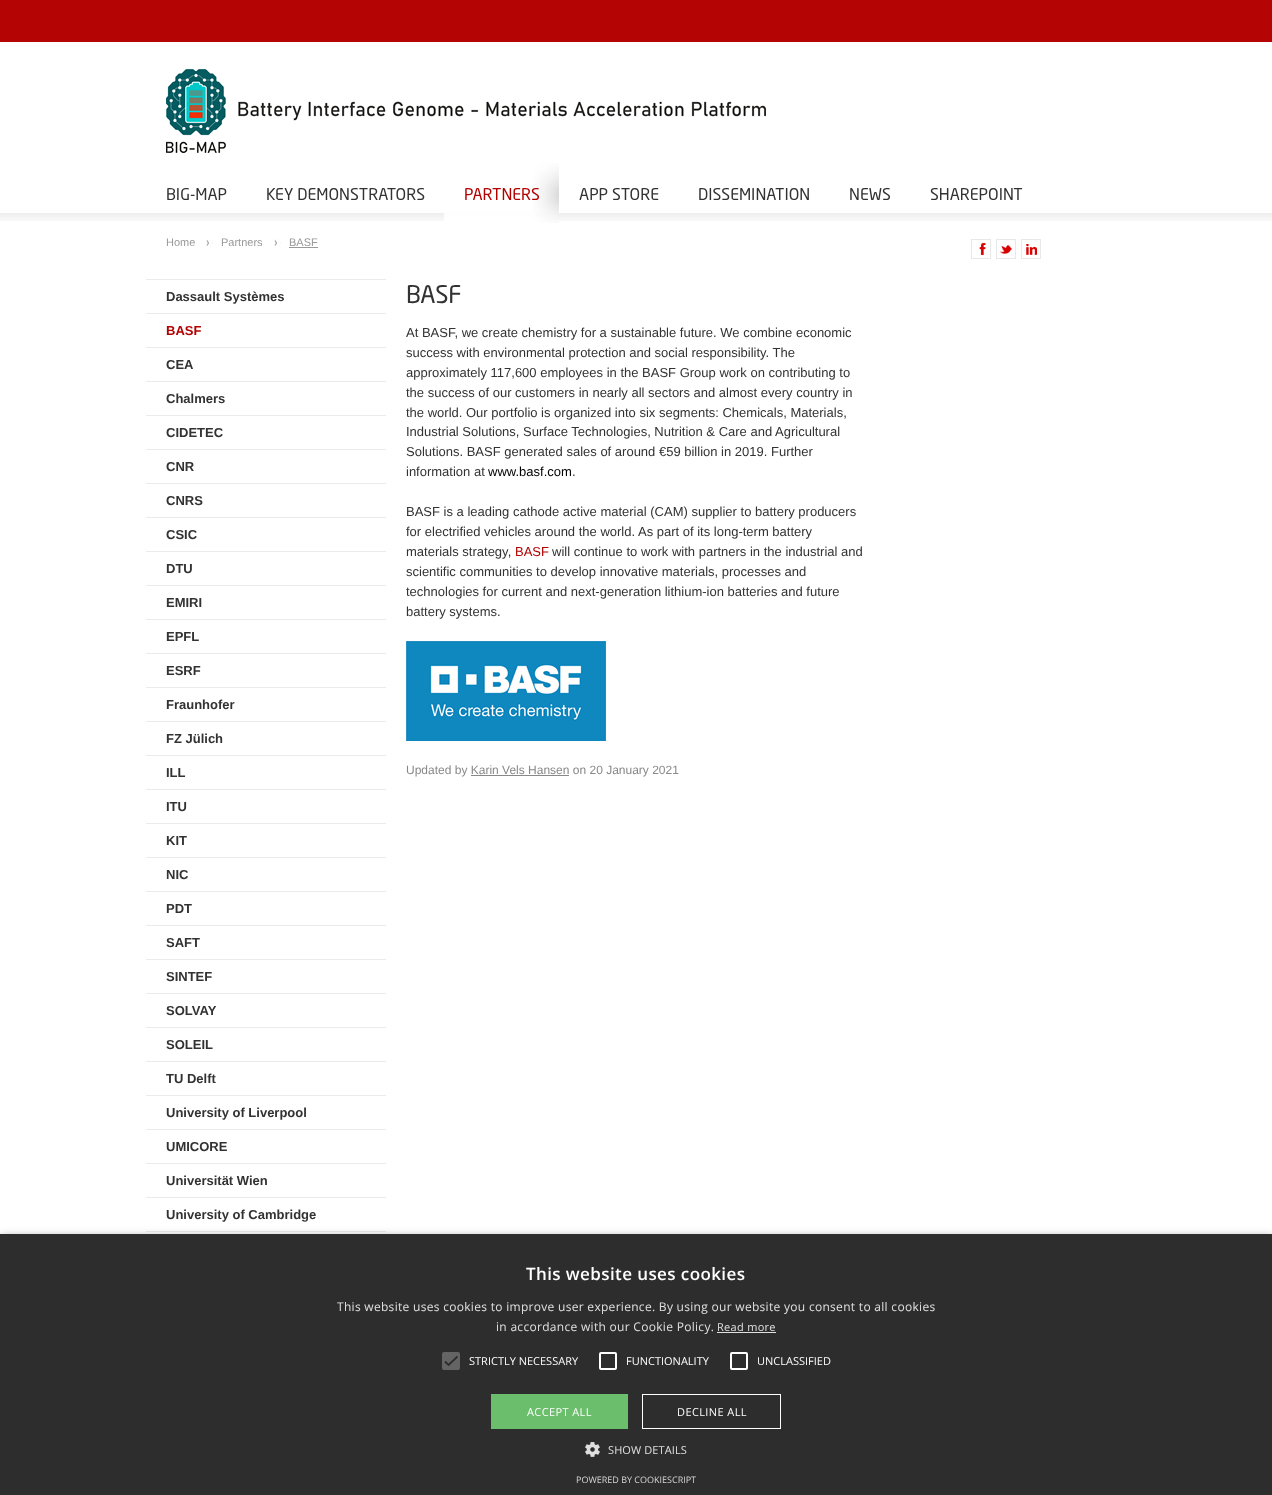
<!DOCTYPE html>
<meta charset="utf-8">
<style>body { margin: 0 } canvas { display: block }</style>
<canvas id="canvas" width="1272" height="1495"></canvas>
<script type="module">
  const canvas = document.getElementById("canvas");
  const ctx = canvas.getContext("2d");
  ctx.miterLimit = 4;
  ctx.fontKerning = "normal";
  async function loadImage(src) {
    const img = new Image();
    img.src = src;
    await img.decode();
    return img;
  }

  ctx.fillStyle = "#ffffff";
  ctx.fillRect(0, 0, 1272, 1495);
  ctx.fillStyle = "#b50404";
  ctx.fillRect(0, 0, 1272, 42);
  ctx.drawImage(await loadImage("img1.png"), 166, 69, 600, 84);
  ctx.font = "16px 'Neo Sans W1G'";
  ctx.fillStyle = "#323232";
  ctx.fillText("BIG-MAP", 166, 200);
  ctx.fillText("KEY DEMONSTRATORS", 266, 200);
  ctx.drawImage(await loadImage("img3.png"), 0, 213, 1272, 8);
  ctx.drawImage(await loadImage("img2.png"), 444, 163, 115, 60);
  ctx.fillStyle = "#b20000";
  ctx.fillText("PARTNERS", 464, 200);
  ctx.fillStyle = "#323232";
  ctx.fillText("APP STORE", 579, 200);
  ctx.fillText("DISSEMINATION", 698, 200);
  ctx.fillText("NEWS", 849, 200);
  ctx.fillText("SHAREPOINT", 930, 200);
  ctx.font = "11px Liberation Sans";
  ctx.fillStyle = "#999999";
  ctx.fillText("Home", 166, 246);
  ctx.drawImage(await loadImage("img4.png"), 206, 239, 7, 7);
  ctx.fillText("Partners", 221, 246);
  ctx.drawImage(await loadImage("img4.png"), 274, 239, 7, 7);
  ctx.fillText("BASF", 289, 246);
  ctx.fillRect(289, 247, 29, 1);
  ctx.drawImage(await loadImage("img5.png"), 971, 239, 20, 20);
  ctx.drawImage(await loadImage("img6.png"), 996, 239, 20, 20);
  ctx.drawImage(await loadImage("img7.png"), 1021, 239, 20, 20);
  ctx.fillStyle = "#ebebeb";
  ctx.fillRect(146, 279, 240, 1);
  ctx.fillRect(146, 313, 240, 1);
  ctx.font = "bold 13px Liberation Sans";
  ctx.fillStyle = "#323232";
  ctx.fillText("Dassault Systèmes", 166, 301);
  ctx.fillStyle = "#ebebeb";
  ctx.fillRect(146, 347, 240, 1);
  ctx.fillStyle = "#b20000";
  ctx.fillText("BASF", 166, 335);
  ctx.fillStyle = "#ebebeb";
  ctx.fillRect(146, 381, 240, 1);
  ctx.fillStyle = "#323232";
  ctx.fillText("CEA", 166, 369);
  ctx.fillStyle = "#ebebeb";
  ctx.fillRect(146, 415, 240, 1);
  ctx.fillStyle = "#323232";
  ctx.fillText("Chalmers", 166, 403);
  ctx.fillStyle = "#ebebeb";
  ctx.fillRect(146, 449, 240, 1);
  ctx.fillStyle = "#323232";
  ctx.fillText("CIDETEC", 166, 437);
  ctx.fillStyle = "#ebebeb";
  ctx.fillRect(146, 483, 240, 1);
  ctx.fillStyle = "#323232";
  ctx.fillText("CNR", 166, 471);
  ctx.fillStyle = "#ebebeb";
  ctx.fillRect(146, 517, 240, 1);
  ctx.fillStyle = "#323232";
  ctx.fillText("CNRS", 166, 505);
  ctx.fillStyle = "#ebebeb";
  ctx.fillRect(146, 551, 240, 1);
  ctx.fillStyle = "#323232";
  ctx.fillText("CSIC", 166, 539);
  ctx.fillStyle = "#ebebeb";
  ctx.fillRect(146, 585, 240, 1);
  ctx.fillStyle = "#323232";
  ctx.fillText("DTU", 166, 573);
  ctx.fillStyle = "#ebebeb";
  ctx.fillRect(146, 619, 240, 1);
  ctx.fillStyle = "#323232";
  ctx.fillText("EMIRI", 166, 607);
  ctx.fillStyle = "#ebebeb";
  ctx.fillRect(146, 653, 240, 1);
  ctx.fillStyle = "#323232";
  ctx.fillText("EPFL", 166, 641);
  ctx.fillStyle = "#ebebeb";
  ctx.fillRect(146, 687, 240, 1);
  ctx.fillStyle = "#323232";
  ctx.fillText("ESRF", 166, 675);
  ctx.fillStyle = "#ebebeb";
  ctx.fillRect(146, 721, 240, 1);
  ctx.fillStyle = "#323232";
  ctx.fillText("Fraunhofer", 166, 709);
  ctx.fillStyle = "#ebebeb";
  ctx.fillRect(146, 755, 240, 1);
  ctx.fillStyle = "#323232";
  ctx.fillText("FZ Jülich", 166, 743);
  ctx.fillStyle = "#ebebeb";
  ctx.fillRect(146, 789, 240, 1);
  ctx.fillStyle = "#323232";
  ctx.fillText("ILL", 166, 777);
  ctx.fillStyle = "#ebebeb";
  ctx.fillRect(146, 823, 240, 1);
  ctx.fillStyle = "#323232";
  ctx.fillText("ITU", 166, 811);
  ctx.fillStyle = "#ebebeb";
  ctx.fillRect(146, 857, 240, 1);
  ctx.fillStyle = "#323232";
  ctx.fillText("KIT", 166, 845);
  ctx.fillStyle = "#ebebeb";
  ctx.fillRect(146, 891, 240, 1);
  ctx.fillStyle = "#323232";
  ctx.fillText("NIC", 166, 879);
  ctx.fillStyle = "#ebebeb";
  ctx.fillRect(146, 925, 240, 1);
  ctx.fillStyle = "#323232";
  ctx.fillText("PDT", 166, 913);
  ctx.fillStyle = "#ebebeb";
  ctx.fillRect(146, 959, 240, 1);
  ctx.fillStyle = "#323232";
  ctx.fillText("SAFT", 166, 947);
  ctx.fillStyle = "#ebebeb";
  ctx.fillRect(146, 993, 240, 1);
  ctx.fillStyle = "#323232";
  ctx.fillText("SINTEF", 166, 981);
  ctx.fillStyle = "#ebebeb";
  ctx.fillRect(146, 1027, 240, 1);
  ctx.fillStyle = "#323232";
  ctx.fillText("SOLVAY", 166, 1015);
  ctx.fillStyle = "#ebebeb";
  ctx.fillRect(146, 1061, 240, 1);
  ctx.fillStyle = "#323232";
  ctx.fillText("SOLEIL", 166, 1049);
  ctx.fillStyle = "#ebebeb";
  ctx.fillRect(146, 1095, 240, 1);
  ctx.fillStyle = "#323232";
  ctx.fillText("TU Delft", 166, 1083);
  ctx.fillStyle = "#ebebeb";
  ctx.fillRect(146, 1129, 240, 1);
  ctx.fillStyle = "#323232";
  ctx.fillText("University of Liverpool", 166, 1117);
  ctx.fillStyle = "#ebebeb";
  ctx.fillRect(146, 1163, 240, 1);
  ctx.fillStyle = "#323232";
  ctx.fillText("UMICORE", 166, 1151);
  ctx.fillStyle = "#ebebeb";
  ctx.fillRect(146, 1197, 240, 1);
  ctx.fillStyle = "#323232";
  ctx.fillText("Universität Wien", 166, 1185);
  ctx.fillStyle = "#ebebeb";
  ctx.fillRect(146, 1231, 240, 1);
  ctx.fillStyle = "#323232";
  ctx.fillText("University of Cambridge", 166, 1219);
  ctx.font = "24px 'Neo Sans W1G'";
  ctx.fillText("BASF", 406, 303);
  ctx.font = "13px Liberation Sans";
  ctx.fillText("At BASF, we create chemistry for a sustainable future. We combine economic", 406, 337);
  ctx.fillText("success with environmental protection and social responsibility. The", 406, 357);
  ctx.fillText("approximately 117,600 employees in the BASF Group work on contributing to", 406, 377);
  ctx.fillText("the success of our customers in nearly all sectors and almost every country in", 406, 397);
  ctx.fillText("the world. Our portfolio is organized into six segments: Chemicals, Materials,", 406, 417);
  ctx.fillText("Industrial Solutions, Surface Technologies, Nutrition & Care and Agricultural", 406, 436);
  ctx.fillText("Solutions. BASF generated sales of around €59 billion in 2019. Further", 406, 456);
  ctx.fillText("information at", 406, 476);
  ctx.fillStyle = "#000000";
  ctx.fillText("www.basf.com", 488, 476);
  ctx.fillStyle = "#323232";
  ctx.fillText(".", 572, 476);
  ctx.fillText("BASF is a leading cathode active material (CAM) supplier to battery producers", 406, 516);
  ctx.fillText("for electrified vehicles around the world. As part of its long-term battery", 406, 536);
  ctx.fillText("materials strategy,", 406, 556);
  ctx.fillStyle = "#b20000";
  ctx.fillText("BASF", 515, 556);
  ctx.fillStyle = "#323232";
  ctx.fillText("will continue to work with partners in the industrial and", 552, 556);
  ctx.fillText("scientific communities to develop innovative materials, processes and", 406, 576);
  ctx.fillText("technologies for current and next-generation lithium-ion batteries and future", 406, 596);
  ctx.fillText("battery systems.", 406, 616);
  ctx.drawImage(await loadImage("img8.png"), 406, 641, 200, 100);
  ctx.font = "12px Liberation Sans";
  ctx.fillStyle = "#888888";
  ctx.fillText("Updated by Karin Vels Hansen on 20 January 2021", 406, 774);
  ctx.fillRect(471, 775, 98, 1);
  ctx.fillStyle = "rgba(0, 0, 0, 0.35)";
  ctx.filter = "blur(4px)";
  ctx.beginPath();
  ctx.rect(1, 1236, 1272, 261);
  ctx.fill();
  ctx.filter = "none";
  ctx.fillStyle = "#2d2d2d";
  ctx.fillRect(0, 1234, 1272, 261);
  ctx.letterSpacing = "0.4px";
  ctx.font = "600 17px Open Sans";
  ctx.fillStyle = "#ffffff";
  ctx.fillText("This website uses cookies", 526, 1280);
  ctx.letterSpacing = "0.3px";
  ctx.font = "12px Open Sans";
  ctx.fillStyle = "#e0e0e0";
  ctx.fillText("This website uses cookies to improve user experience. By using our website you consent to all cookies", 337, 1311);
  ctx.fillText("in accordance with our Cookie Policy.", 496, 1331);
  ctx.font = "11px Open Sans";
  ctx.fillText("Read more", 717, 1331);
  ctx.fillRect(717, 1332, 59, 1);
  ctx.fillStyle = "#646464";
  ctx.beginPath();
  ctx.roundRect(442, 1352, 18, 18, 2);
  ctx.fill();
  ctx.beginPath();
  ctx.moveTo(445, 1361.5);
  ctx.lineTo(448.5, 1365);
  ctx.lineTo(457.5, 1356.5);
  ctx.strokeStyle = "#2d2d2d";
  ctx.lineWidth = 1.8;
  ctx.stroke();
  ctx.letterSpacing = "0px";
  ctx.fillStyle = "#ffffff";
  ctx.fillText("STRICTLY NECESSARY", 469, 1365);
  ctx.beginPath();
  ctx.roundRect(600, 1353, 16, 16, 1);
  ctx.strokeStyle = "#ffffff";
  ctx.lineWidth = 2;
  ctx.stroke();
  ctx.fillText("FUNCTIONALITY", 626, 1365);
  ctx.beginPath();
  ctx.roundRect(731, 1353, 16, 16, 1);
  ctx.stroke();
  ctx.fillText("UNCLASSIFIED", 757, 1365);
  ctx.fillStyle = "#6bbe6b";
  ctx.fillRect(491, 1394, 137, 35);
  ctx.letterSpacing = "0.4px";
  ctx.fillStyle = "#ffffff";
  ctx.fillText("ACCEPT ALL", 527, 1416);
  ctx.lineWidth = 1;
  ctx.strokeRect(642.5, 1394.5, 138, 34);
  ctx.fillText("DECLINE ALL", 677, 1416);
  ctx.drawImage(await loadImage("img9.png"), 585, 1442, 15, 15);
  ctx.letterSpacing = "0.1px";
  ctx.fillStyle = "#e0e0e0";
  ctx.fillText("SHOW DETAILS", 608, 1454);
  ctx.letterSpacing = "0px";
  ctx.font = "9px Open Sans";
  ctx.fillStyle = "#d5d5d5";
  ctx.fillText("POWERED BY COOKIESCRIPT", 576, 1483);
</script>
